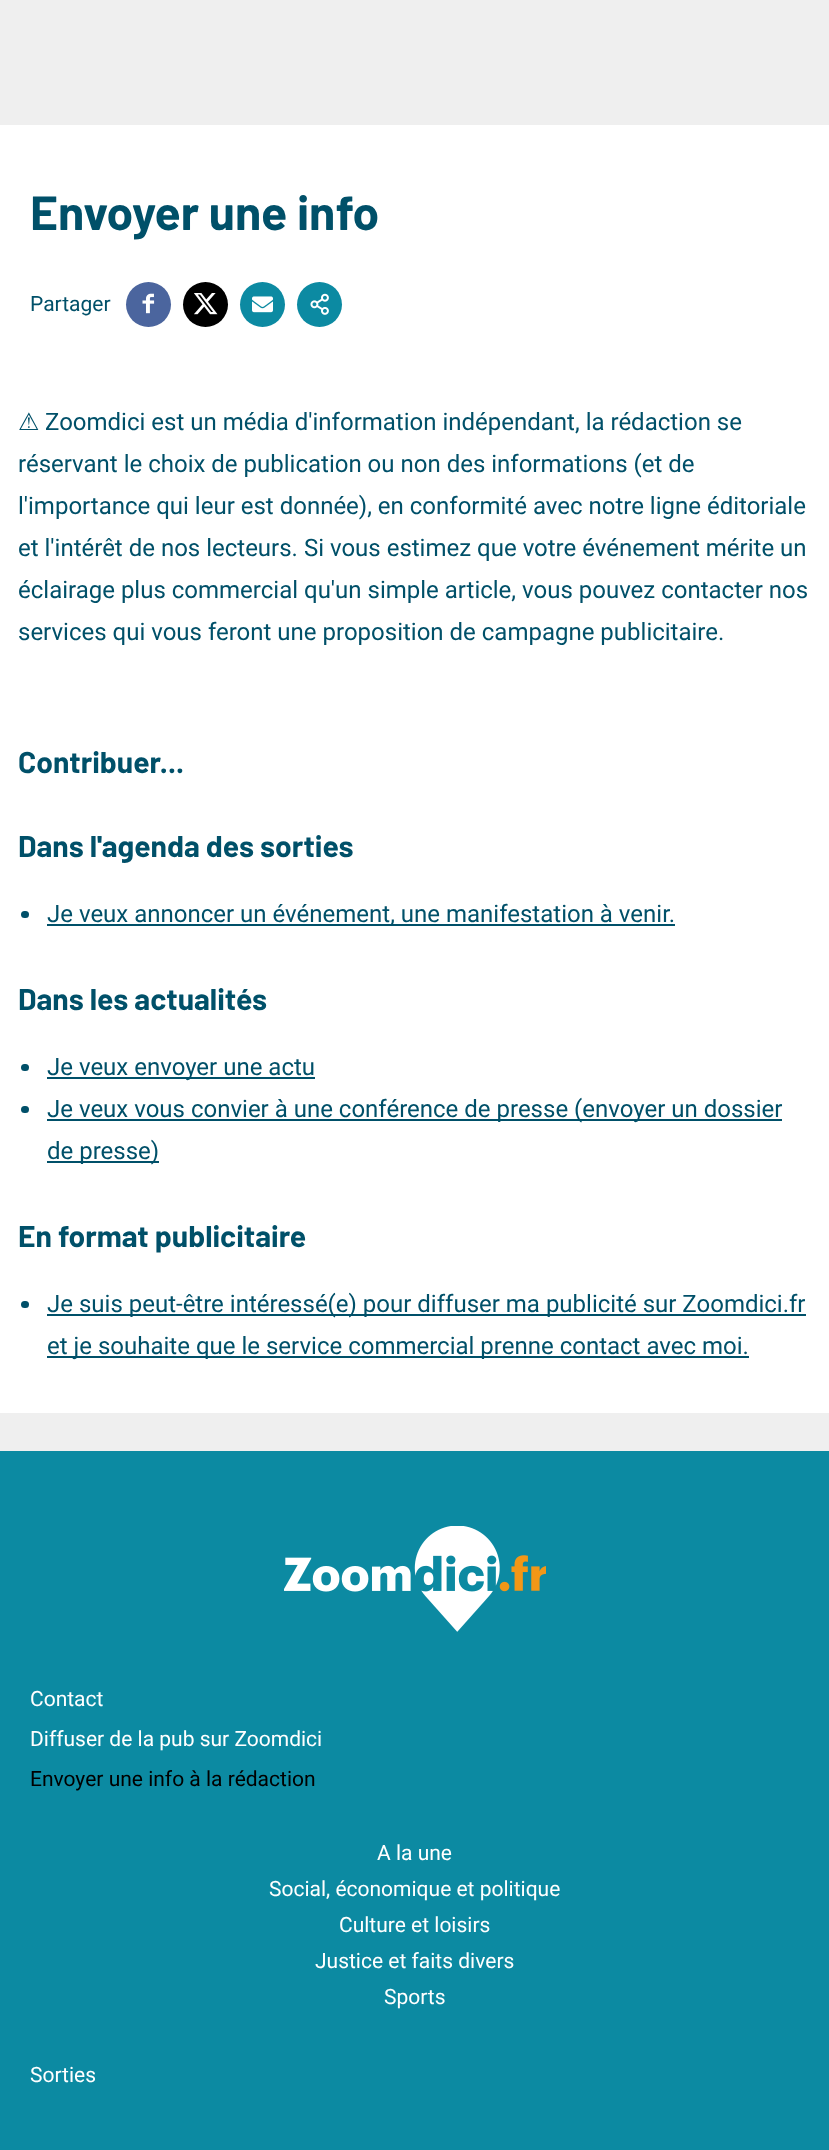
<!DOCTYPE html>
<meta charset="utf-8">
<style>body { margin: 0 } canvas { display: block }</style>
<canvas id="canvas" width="829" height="2150"></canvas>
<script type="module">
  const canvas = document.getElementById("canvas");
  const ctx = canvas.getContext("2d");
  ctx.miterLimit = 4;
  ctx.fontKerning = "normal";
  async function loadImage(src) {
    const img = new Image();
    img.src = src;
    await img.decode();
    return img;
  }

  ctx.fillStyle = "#efefef";
  ctx.fillRect(0, 0, 829, 2150);
  ctx.fillStyle = "#ffffff";
  ctx.fillRect(0, 125, 829, 1288);
  ctx.font = "bold 48px Barlow";
  ctx.fillStyle = "#005069";
  ctx.fillText("Envoyer une info", 30, 230);
  ctx.font = "21px Roboto";
  ctx.fillText("Partager", 30, 311);
  ctx.fillStyle = "#4b659e";
  ctx.beginPath();
  ctx.arc(148.5, 304.5, 22.5, 0, Math.PI * 2);
  ctx.fill();
  ctx.drawImage(await loadImage("img1.png"), 142, 293, 13, 21);
  ctx.fillStyle = "#000000";
  ctx.beginPath();
  ctx.arc(205.5, 304.5, 22.5, 0, Math.PI * 2);
  ctx.fill();
  ctx.drawImage(await loadImage("img2.png"), 194, 293, 24, 22);
  ctx.fillStyle = "#0c8aa2";
  ctx.beginPath();
  ctx.arc(262.5, 304.5, 22.5, 0, Math.PI * 2);
  ctx.fill();
  ctx.drawImage(await loadImage("img3.png"), 252, 296, 21, 17);
  ctx.beginPath();
  ctx.arc(319.5, 304.5, 22.5, 0, Math.PI * 2);
  ctx.fill();
  ctx.drawImage(await loadImage("img4.png"), 310, 293, 19, 22);
  ctx.font = "24px DejaVu Sans";
  ctx.fillStyle = "#005069";
  ctx.fillText("⚠", 18, 430);
  ctx.font = "24px Roboto";
  ctx.fillText("Zoomdici est un média d'information indépendant, la rédaction se", 45, 430);
  ctx.fillText("réservant le choix de publication ou non des informations (et de", 18, 472);
  ctx.fillText("l'importance qui leur est donnée), en conformité avec notre ligne éditoriale", 18, 514);
  ctx.fillText("et l'intérêt de nos lecteurs. Si vous estimez que votre événement mérite un", 18, 556);
  ctx.fillText("éclairage plus commercial qu'un simple article, vous pouvez contacter nos", 18, 598);
  ctx.fillText("services qui vous feront une proposition de campagne publicitaire.", 18, 640);
  ctx.font = "bold 30px Barlow";
  ctx.fillText("Contribuer...", 18, 773);
  ctx.fillText("Dans l'agenda des sorties", 18, 857);
  ctx.beginPath();
  ctx.roundRect(21, 911, 8, 7, 3.5);
  ctx.fill();
  ctx.fillRect(47, 924, 628, 2);
  ctx.font = "24px Roboto";
  ctx.fillText("Je veux annoncer un événement, une manifestation à venir.", 47, 922);
  ctx.font = "bold 30px Barlow";
  ctx.fillText("Dans les actualités", 18, 1010);
  ctx.beginPath();
  ctx.roundRect(21, 1064, 8, 7, 3.5);
  ctx.fill();
  ctx.fillRect(47, 1077, 268, 2);
  ctx.font = "24px Roboto";
  ctx.fillText("Je veux envoyer une actu", 47, 1075);
  ctx.beginPath();
  ctx.roundRect(21, 1106, 8, 7, 3.5);
  ctx.fill();
  ctx.fillRect(47, 1119, 735, 2);
  ctx.fillText("Je veux vous convier à une conférence de presse (envoyer un dossier", 47, 1117);
  ctx.fillRect(47, 1161, 112, 2);
  ctx.fillText("de presse)", 47, 1159);
  ctx.font = "bold 30px Barlow";
  ctx.fillText("En format publicitaire", 18, 1247);
  ctx.beginPath();
  ctx.roundRect(21, 1301, 8, 7, 3.5);
  ctx.fill();
  ctx.fillRect(47, 1314, 759, 2);
  ctx.font = "24px Roboto";
  ctx.fillText("Je suis peut-être intéressé(e) pour diffuser ma publicité sur Zoomdici.fr", 47, 1312);
  ctx.fillRect(47, 1356, 702, 2);
  ctx.fillText("et je souhaite que le service commercial prenne contact avec moi.", 47, 1354);
  ctx.fillStyle = "#0c8aa2";
  ctx.fillRect(0, 1451, 829, 699);
  ctx.drawImage(await loadImage("img5.png"), 284, 1526, 262, 106);
  ctx.font = "21px Roboto";
  ctx.fillStyle = "#ffffff";
  ctx.fillText("Contact", 30, 1706);
  ctx.fillText("Diffuser de la pub sur Zoomdici", 30, 1746);
  ctx.fillStyle = "#000000";
  ctx.fillText("Envoyer une info à la rédaction", 30, 1786);
  ctx.fillStyle = "#ffffff";
  ctx.fillText("A la une", 377, 1860);
  ctx.fillText("Social, économique et politique", 269, 1896);
  ctx.fillText("Culture et loisirs", 339, 1932);
  ctx.fillText("Justice et faits divers", 315, 1968);
  ctx.fillText("Sports", 384, 2004);
  ctx.fillText("Sorties", 30, 2082);
</script>
